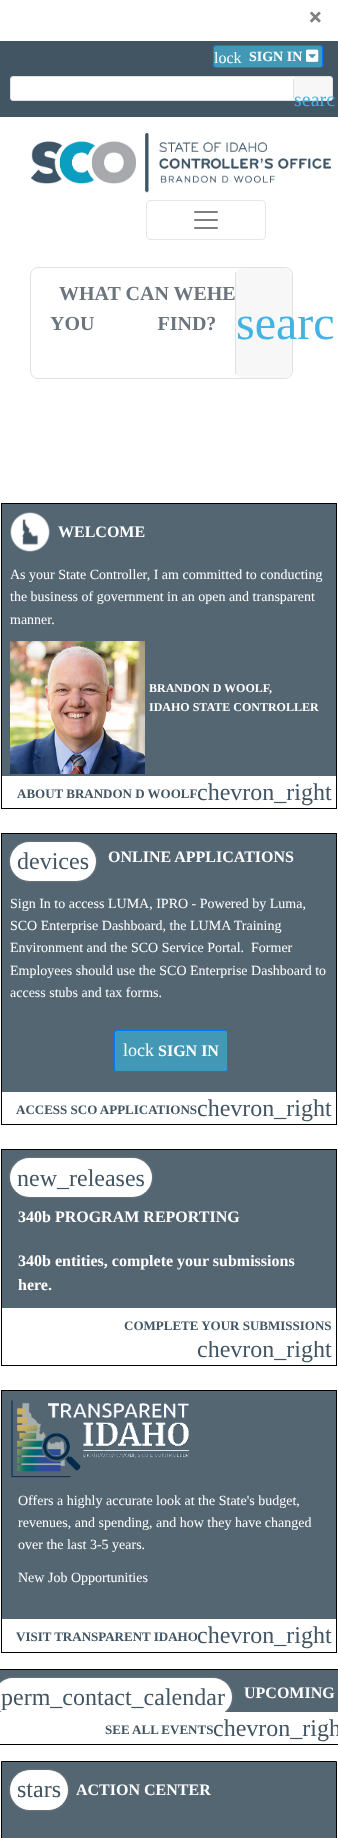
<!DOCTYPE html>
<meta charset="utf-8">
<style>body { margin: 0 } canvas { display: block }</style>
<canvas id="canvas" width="338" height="1838"></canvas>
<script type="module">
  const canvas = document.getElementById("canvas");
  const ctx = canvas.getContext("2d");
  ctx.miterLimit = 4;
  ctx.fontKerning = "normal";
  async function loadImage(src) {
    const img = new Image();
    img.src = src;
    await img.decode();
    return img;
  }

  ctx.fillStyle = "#ffffff";
  ctx.fillRect(0, 0, 338, 1838);
  ctx.font = "bold 24px Roboto";
  ctx.fillStyle = "#808080";
  ctx.fillText("×", 309, 25);
  ctx.fillStyle = "#425563";
  ctx.fillRect(0, 41, 338, 76);
  ctx.fillStyle = "#4298b5";
  ctx.beginPath();
  ctx.roundRect(213.5, 45.5, 109, 22, 2.5);
  ctx.fill();
  ctx.strokeStyle = "#007bff";
  ctx.stroke();
  ctx.font = "16px Liberation Serif";
  ctx.fillStyle = "#ffffff";
  ctx.fillText("lock", 214, 63);
  ctx.font = "bold 14px Liberation Serif";
  ctx.fillText("SIGN IN", 249, 61);
  ctx.drawImage(await loadImage("img1.png"), 306, 49, 13, 13);
  ctx.beginPath();
  ctx.roundRect(10.5, 76.5, 322, 24, 2.5);
  ctx.fill();
  ctx.strokeStyle = "#e1e1e1";
  ctx.stroke();
  ctx.fillStyle = "#f7f7f7";
  ctx.beginPath();
  ctx.roundRect(293, 77, 39, 23, 3);
  ctx.fill();
  ctx.fillStyle = "#e1e1e1";
  ctx.fillRect(293, 79, 1, 20);
  ctx.font = "20px Liberation Serif";
  ctx.fillStyle = "#41b3e5";
  ctx.fillText("searc", 294, 106);
  ctx.drawImage(await loadImage("img2.png"), 31, 133, 300, 60);
  ctx.beginPath();
  ctx.roundRect(146.5, 200.5, 119, 39, 3.5);
  ctx.strokeStyle = "#e6e6e6";
  ctx.stroke();
  ctx.drawImage(await loadImage("img3.png"), 194, 211, 24, 18);
  ctx.beginPath();
  ctx.roundRect(30.5, 267.5, 262, 111, 7.5);
  ctx.strokeStyle = "#e1e1e1";
  ctx.stroke();
  ctx.font = "bold 20px Liberation Serif";
  ctx.fillStyle = "#6c757d";
  ctx.fillText("WHAT CAN WEHE", 59, 300);
  ctx.wordSpacing = "58px";
  ctx.fillText("YOU FIND?", 50, 330);
  ctx.fillStyle = "#f7f7f7";
  ctx.beginPath();
  ctx.roundRect(235, 268, 57, 110, 8);
  ctx.fill();
  ctx.fillStyle = "#e1e1e1";
  ctx.fillRect(235, 272, 1, 102);
  ctx.wordSpacing = "0px";
  ctx.font = "48px Liberation Serif";
  ctx.fillStyle = "#41b3e5";
  ctx.fillText("searc", 236, 339);
  ctx.fillStyle = "#556673";
  ctx.fillRect(2, 504, 334, 272);
  ctx.strokeStyle = "#000000";
  ctx.strokeRect(1.5, 503.5, 335, 305);
  ctx.drawImage(await loadImage("img4.png"), 10, 512, 40, 40);
  ctx.font = "bold 16px Liberation Serif";
  ctx.fillStyle = "#ffffff";
  ctx.fillText("WELCOME", 58, 537);
  ctx.font = "14px Liberation Serif";
  ctx.fillText("As your State Controller, I am committed to conducting", 10, 579);
  ctx.fillText("the business of government in an open and transparent", 10, 601);
  ctx.fillText("manner.", 10, 624);
  ctx.drawImage(await loadImage("img5.png"), 10, 641, 135, 133);
  ctx.font = "bold 12px Liberation Serif";
  ctx.fillText("BRANDON D WOOLF,", 149, 692);
  ctx.fillText("IDAHO STATE CONTROLLER", 149, 711);
  ctx.font = "bold 13px Liberation Serif";
  ctx.fillStyle = "#425563";
  ctx.fillText("ABOUT BRANDON D WOOLF", 17, 798);
  ctx.font = "24px Liberation Serif";
  ctx.fillText("chevron_right", 197, 800);
  ctx.fillStyle = "#556673";
  ctx.fillRect(2, 834, 334, 258);
  ctx.strokeRect(1.5, 833.5, 335, 291);
  ctx.fillStyle = "#888888";
  ctx.filter = "blur(1px)";
  ctx.beginPath();
  ctx.roundRect(10, 842, 86, 39, 19.5);
  ctx.fill();
  ctx.filter = "none";
  ctx.fillStyle = "#ffffff";
  ctx.beginPath();
  ctx.roundRect(10, 842, 86, 39, 19.5);
  ctx.fill();
  ctx.fillStyle = "#425563";
  ctx.fillText("devices", 17, 869);
  ctx.font = "bold 16px Liberation Serif";
  ctx.fillStyle = "#ffffff";
  ctx.fillText("ONLINE APPLICATIONS", 108, 862);
  ctx.font = "14px Liberation Serif";
  ctx.fillText("Sign In to access LUMA, IPRO - Powered by Luma,", 10, 908);
  ctx.fillText("SCO Enterprise Dashboard, the LUMA Training", 10, 930);
  ctx.fillText("Environment and the SCO Service Portal.  Former", 10, 952);
  ctx.fillText("Employees should use the SCO Enterprise Dashboard to", 10, 975);
  ctx.fillText("access stubs and tax forms.", 10, 997);
  ctx.fillStyle = "#4298b5";
  ctx.beginPath();
  ctx.roundRect(114.5, 1030.5, 113, 41, 2.5);
  ctx.fill();
  ctx.strokeStyle = "#007bff";
  ctx.stroke();
  ctx.font = "18px Liberation Serif";
  ctx.fillStyle = "#ffffff";
  ctx.fillText("lock", 123, 1056);
  ctx.font = "bold 16px Liberation Serif";
  ctx.fillText("SIGN IN", 158, 1056);
  ctx.font = "bold 13px Liberation Serif";
  ctx.fillStyle = "#425563";
  ctx.fillText("ACCESS SCO APPLICATIONS", 16, 1114);
  ctx.font = "24px Liberation Serif";
  ctx.fillText("chevron_right", 197, 1116);
  ctx.fillStyle = "#556673";
  ctx.fillRect(2, 1150, 334, 158);
  ctx.strokeStyle = "#000000";
  ctx.strokeRect(1.5, 1149.5, 335, 216);
  ctx.fillStyle = "#888888";
  ctx.filter = "blur(1px)";
  ctx.beginPath();
  ctx.roundRect(10, 1158, 142, 39, 19.5);
  ctx.fill();
  ctx.filter = "none";
  ctx.fillStyle = "#ffffff";
  ctx.beginPath();
  ctx.roundRect(10, 1158, 142, 39, 19.5);
  ctx.fill();
  ctx.fillStyle = "#425563";
  ctx.fillText("new_releases", 17, 1186);
  ctx.font = "bold 16px Liberation Serif";
  ctx.fillStyle = "#ffffff";
  ctx.fillText("340b PROGRAM REPORTING", 18, 1222);
  ctx.fillText("340b entities, complete your submissions", 18, 1266);
  ctx.fillText("here.", 18, 1290);
  ctx.font = "24px Liberation Serif";
  ctx.fillStyle = "#425563";
  ctx.fillText("chevron_right", 197, 1357);
  ctx.fillStyle = "#ffffff";
  ctx.fillRect(208, 1340, 110, 1);
  ctx.font = "bold 13px Liberation Serif";
  ctx.fillStyle = "#425563";
  ctx.fillText("COMPLETE YOUR SUBMISSIONS", 124, 1330);
  ctx.fillStyle = "#556673";
  ctx.fillRect(2, 1391, 334, 228);
  ctx.strokeRect(1.5, 1390.5, 335, 262);
  ctx.drawImage(await loadImage("img6.png"), 11, 1400, 179, 78);
  ctx.font = "14px Liberation Serif";
  ctx.fillStyle = "#ffffff";
  ctx.fillText("Offers a highly accurate look at the State's budget,", 18, 1505);
  ctx.fillText("revenues, and spending, and how they have changed", 18, 1527);
  ctx.fillText("over the last 3-5 years.", 18, 1549);
  ctx.fillText("New Job Opportunities", 18, 1582);
  ctx.font = "bold 13px Liberation Serif";
  ctx.fillStyle = "#425563";
  ctx.fillText("VISIT TRANSPARENT IDAHO", 16, 1641);
  ctx.font = "24px Liberation Serif";
  ctx.fillText("chevron_right", 197, 1643);
  ctx.fillStyle = "#556673";
  ctx.fillRect(0, 1670, 338, 42);
  ctx.strokeRect(-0.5, 1669.5, 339, 75);
  ctx.fillStyle = "#888888";
  ctx.filter = "blur(1px)";
  ctx.beginPath();
  ctx.roundRect(-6, 1678, 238, 38, 19);
  ctx.fill();
  ctx.filter = "none";
  ctx.fillStyle = "#ffffff";
  ctx.beginPath();
  ctx.roundRect(-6, 1678, 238, 38, 19);
  ctx.fill();
  ctx.fillStyle = "#425563";
  ctx.fillText("perm_contact_calendar", 1, 1705);
  ctx.font = "bold 16px Liberation Serif";
  ctx.fillStyle = "#ffffff";
  ctx.fillText("UPCOMING", 244, 1698);
  ctx.fillRect(0, 1712, 227, 6);
  ctx.font = "bold 13px Liberation Serif";
  ctx.fillStyle = "#425563";
  ctx.fillText("SEE ALL EVENTS", 105, 1734);
  ctx.font = "24px Liberation Serif";
  ctx.fillText("chevron_righ", 213, 1736);
  ctx.fillStyle = "#556673";
  ctx.beginPath();
  ctx.rect(1.5, 1761.5, 335, 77);
  ctx.fill();
  ctx.stroke();
  ctx.fillStyle = "#888888";
  ctx.filter = "blur(1px)";
  ctx.beginPath();
  ctx.roundRect(10, 1770, 58, 40, 20);
  ctx.fill();
  ctx.filter = "none";
  ctx.fillStyle = "#ffffff";
  ctx.beginPath();
  ctx.roundRect(10, 1770, 58, 40, 20);
  ctx.fill();
  ctx.fillStyle = "#425563";
  ctx.fillText("stars", 17, 1797);
  ctx.font = "bold 16px Liberation Serif";
  ctx.fillStyle = "#ffffff";
  ctx.fillText("ACTION CENTER", 76, 1795);
</script>
